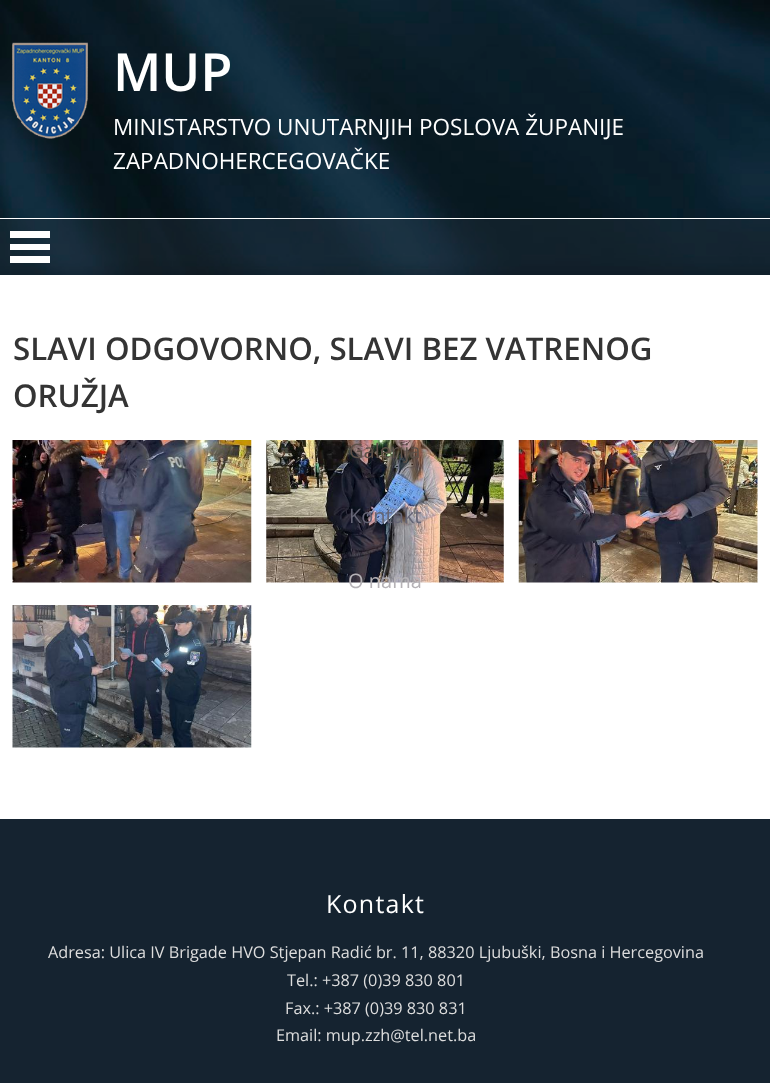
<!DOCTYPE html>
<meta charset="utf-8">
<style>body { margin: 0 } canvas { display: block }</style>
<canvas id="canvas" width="770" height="1083"></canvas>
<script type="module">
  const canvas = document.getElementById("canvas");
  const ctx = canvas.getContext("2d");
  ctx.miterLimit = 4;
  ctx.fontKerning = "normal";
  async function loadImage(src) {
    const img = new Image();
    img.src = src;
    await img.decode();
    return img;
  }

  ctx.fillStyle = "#ffffff";
  ctx.fillRect(0, 0, 770, 1083);
  ctx.drawImage(await loadImage("img2.png"), 0, 0, 770, 275);
  ctx.drawImage(await loadImage("img1.png"), 12, 42, 76, 97);
  ctx.font = "600 52.5px Open Sans";
  ctx.fillText("MUP", 113, 91);
  ctx.font = "22.5px Open Sans";
  ctx.fillText("MINISTARSTVO UNUTARNJIH POSLOVA ŽUPANIJE", 113, 135);
  ctx.fillText("ZAPADNOHERCEGOVAČKE", 113, 169);
  ctx.fillStyle = "rgba(34, 49, 63, 0.4)";
  ctx.fillRect(0, 219, 770, 56);
  ctx.fillStyle = "#ffffff";
  ctx.fillRect(0, 218, 770, 1);
  ctx.fillRect(10, 256, 40, 7);
  ctx.fillRect(10, 244, 40, 6);
  ctx.fillRect(10, 231, 40, 7);
  ctx.drawImage(await loadImage("img4.png"), 266, 440, 238, 143);
  ctx.font = "20px Open Sans";
  ctx.fillStyle = "#5c5048";
  ctx.fillText("Galerija", 349, 458);
  ctx.fillStyle = "#656575";
  ctx.fillText("Kontakt", 349, 523);
  ctx.fillStyle = "#b5b2b6";
  ctx.fillText("O nama", 348, 588);
  ctx.font = "600 31.25px Open Sans";
  ctx.fillStyle = "#343434";
  ctx.fillText("SLAVI ODGOVORNO, SLAVI BEZ VATRENOG", 13, 360);
  ctx.fillText("ORUŽJA", 13, 407);
  ctx.drawImage(await loadImage("img3.png"), 12, 440, 240, 143);
  ctx.drawImage(await loadImage("img5.png"), 518, 440, 240, 143);
  ctx.drawImage(await loadImage("img6.png"), 12, 605, 240, 143);
  ctx.fillStyle = "#152330";
  ctx.fillRect(0, 819, 770, 264);
  ctx.letterSpacing = "1.25px";
  ctx.font = "25px Open Sans";
  ctx.fillStyle = "#ffffff";
  ctx.fillText("Kontakt", 326, 913);
  ctx.letterSpacing = "0px";
  ctx.font = "16.25px Open Sans";
  ctx.fillStyle = "#dddddd";
  ctx.fillText("Adresa: Ulica IV Brigade HVO Stjepan Radić br. 11, 88320 Ljubuški, Bosna i Hercegovina", 48, 958);
  ctx.fillText("Tel.: +387 (0)39 830 801", 287, 986);
  ctx.fillText("Fax.: +387 (0)39 830 831", 285, 1014);
  ctx.fillText("Email: mup.zzh@tel.net.ba", 276, 1041);
</script>
